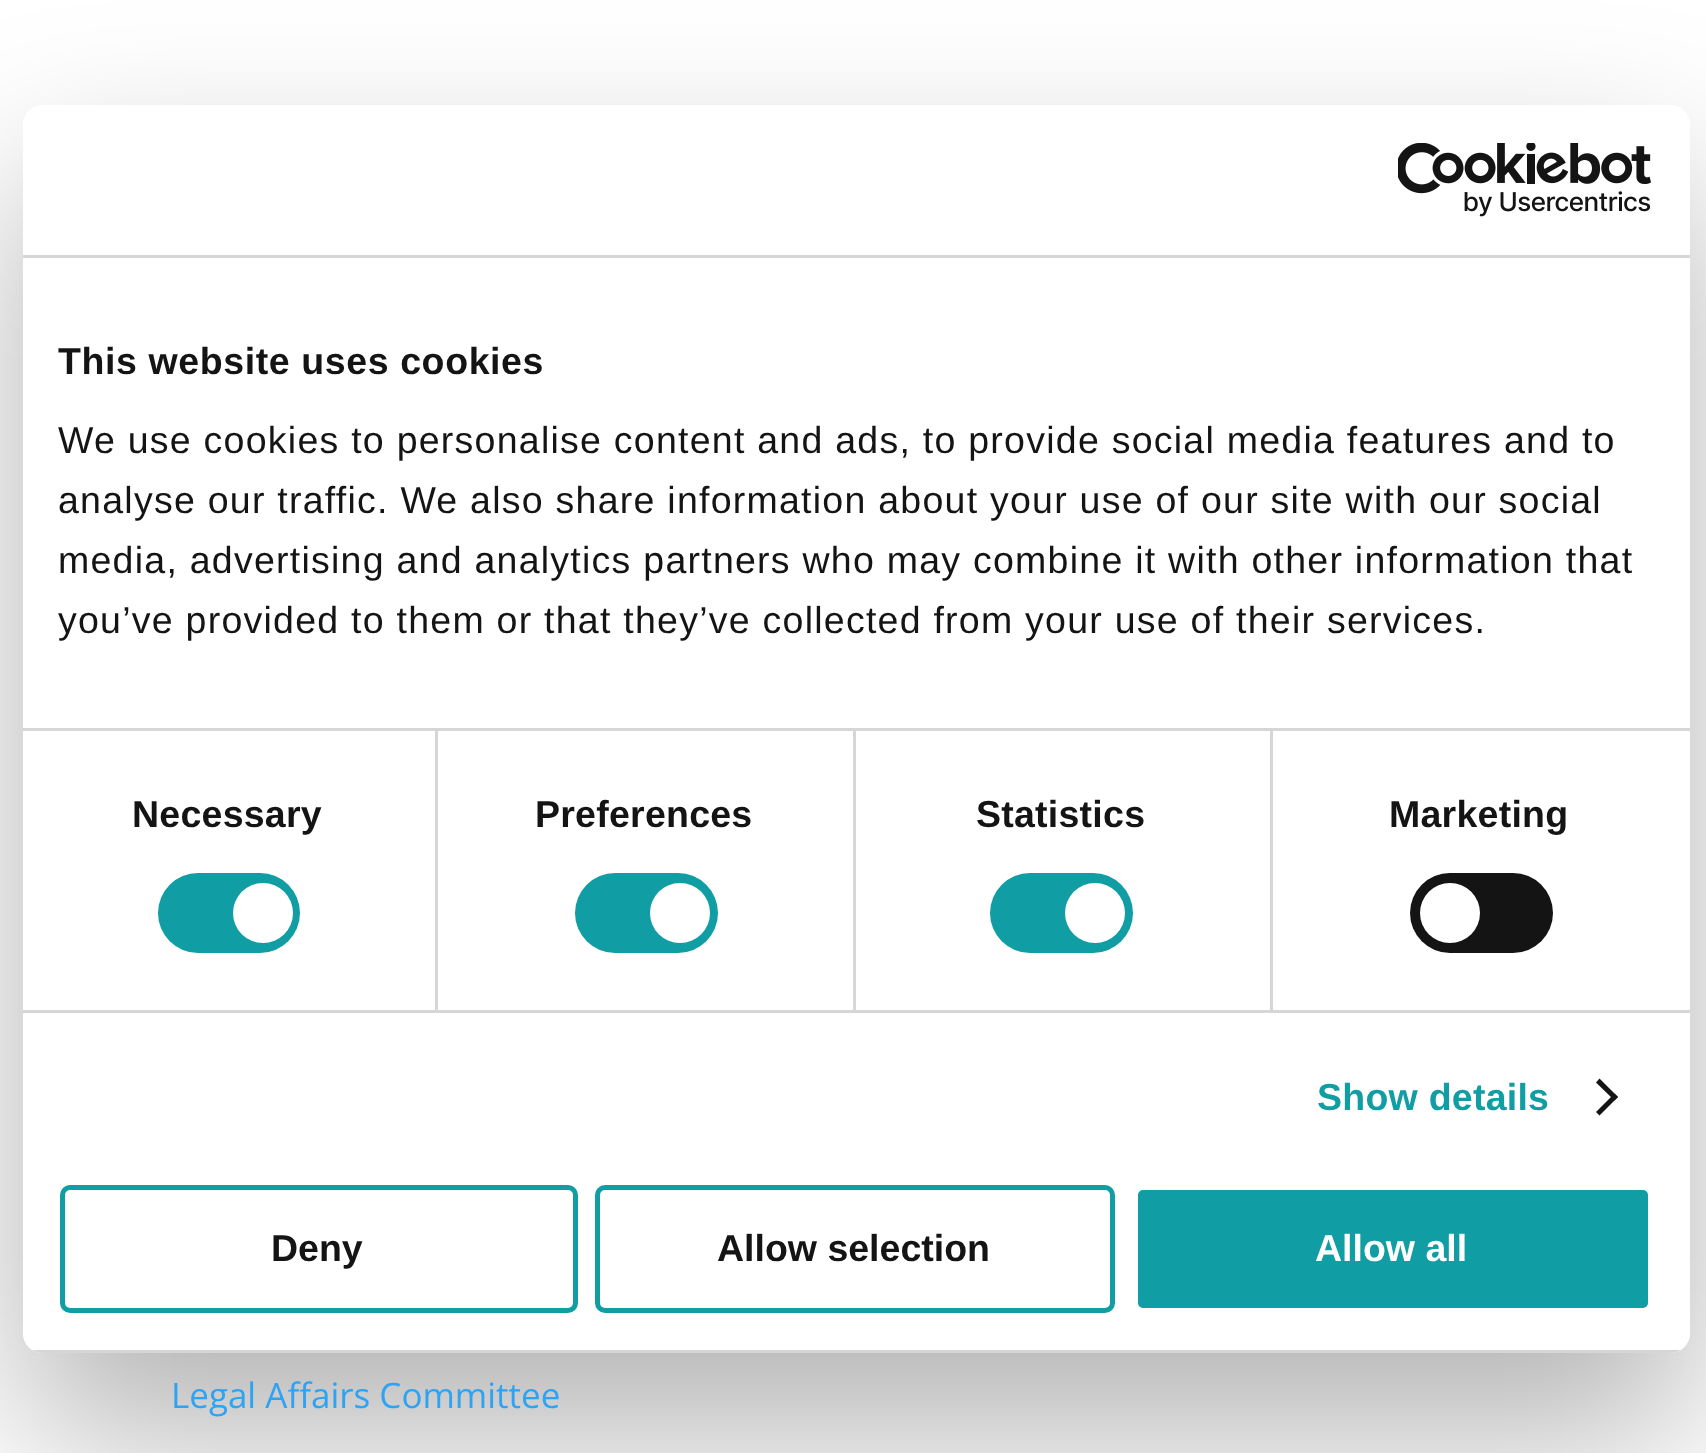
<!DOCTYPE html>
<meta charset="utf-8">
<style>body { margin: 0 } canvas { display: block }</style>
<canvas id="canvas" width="1706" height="1453"></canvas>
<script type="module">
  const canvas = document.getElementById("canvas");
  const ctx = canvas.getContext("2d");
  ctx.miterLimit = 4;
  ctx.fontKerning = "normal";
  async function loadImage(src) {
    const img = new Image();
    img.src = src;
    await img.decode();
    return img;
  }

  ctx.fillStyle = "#ffffff";
  ctx.fillRect(0, 0, 1706, 1453);
  ctx.save();
  ctx.beginPath();
  ctx.moveTo(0, 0);
  ctx.lineTo(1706, 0);
  ctx.lineTo(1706, 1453);
  ctx.lineTo(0, 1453);
  ctx.closePath();
  ctx.moveTo(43, 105);
  ctx.lineTo(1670, 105);
  ctx.bezierCurveTo(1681, 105, 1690, 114, 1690, 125);
  ctx.lineTo(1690, 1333);
  ctx.bezierCurveTo(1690, 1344, 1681, 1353, 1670, 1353);
  ctx.lineTo(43, 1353);
  ctx.bezierCurveTo(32, 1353, 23, 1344, 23, 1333);
  ctx.lineTo(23, 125);
  ctx.bezierCurveTo(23, 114, 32, 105, 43, 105);
  ctx.closePath();
  ctx.clip("evenodd");
  ctx.fillStyle = "rgba(0, 0, 0, 0.3)";
  ctx.filter = "blur(85px)";
  ctx.beginPath();
  ctx.roundRect(23, 185, 1667, 1248, 20);
  ctx.fill();
  ctx.filter = "none";
  ctx.restore();
  ctx.beginPath();
  ctx.roundRect(23, 105, 1667, 1248, 20);
  ctx.fill();
  ctx.fillStyle = "#d6d6d6";
  ctx.fillRect(23, 255, 1667, 3);
  ctx.drawImage(await loadImage("img1.png"), 1398, 143, 253, 74);
  ctx.fillRect(435, 730, 3, 280);
  ctx.fillRect(853, 730, 3, 280);
  ctx.fillRect(1270, 730, 3, 280);
  ctx.fillRect(23, 728, 1667, 3);
  ctx.letterSpacing = "0.6px";
  ctx.font = "bold 37.5px Liberation Sans";
  ctx.fillStyle = "#141414";
  ctx.fillText("This website uses cookies", 58, 374);
  ctx.letterSpacing = "1.25px";
  ctx.font = "37.5px Liberation Sans";
  ctx.fillText("We use cookies to personalise content and ads, to provide social media features and to", 58, 453);
  ctx.fillText("analyse our traffic. We also share information about your use of our site with our social", 58, 513);
  ctx.fillText("media, advertising and analytics partners who may combine it with other information that", 58, 573);
  ctx.fillText("you’ve provided to them or that they’ve collected from your use of their services.", 58, 633);
  ctx.fillStyle = "#d6d6d6";
  ctx.fillRect(23, 1010, 1667, 3);
  ctx.letterSpacing = "0.25px";
  ctx.font = "bold 37.5px Liberation Sans";
  ctx.fillStyle = "#141414";
  ctx.fillText("Necessary", 132, 827);
  ctx.fillStyle = "#119da4";
  ctx.beginPath();
  ctx.roundRect(158, 873, 142, 80, 40);
  ctx.fill();
  ctx.fillStyle = "#ffffff";
  ctx.beginPath();
  ctx.arc(263, 913, 30, 0, Math.PI * 2);
  ctx.fill();
  ctx.fillStyle = "#141414";
  ctx.fillText("Preferences", 535, 827);
  ctx.fillStyle = "#119da4";
  ctx.beginPath();
  ctx.roundRect(575, 873, 143, 80, 40);
  ctx.fill();
  ctx.fillStyle = "#ffffff";
  ctx.beginPath();
  ctx.arc(680, 913, 30, 0, Math.PI * 2);
  ctx.fill();
  ctx.fillStyle = "#141414";
  ctx.fillText("Statistics", 976, 827);
  ctx.fillStyle = "#119da4";
  ctx.beginPath();
  ctx.roundRect(990, 873, 143, 80, 40);
  ctx.fill();
  ctx.fillStyle = "#ffffff";
  ctx.beginPath();
  ctx.arc(1095, 913, 30, 0, Math.PI * 2);
  ctx.fill();
  ctx.fillStyle = "#141414";
  ctx.fillText("Marketing", 1389, 827);
  ctx.beginPath();
  ctx.roundRect(1410, 873, 143, 80, 40);
  ctx.fill();
  ctx.fillStyle = "#ffffff";
  ctx.beginPath();
  ctx.arc(1450, 913, 30, 0, Math.PI * 2);
  ctx.fill();
  ctx.fillStyle = "#119da4";
  ctx.fillText("Show details", 1317, 1110);
  ctx.fillStyle = "#141414";
  ctx.beginPath();
  ctx.moveTo(1599.5, 1078.5);
  ctx.lineTo(1618, 1097);
  ctx.lineTo(1614.5, 1100.5);
  ctx.lineTo(1596, 1082.5);
  ctx.closePath();
  ctx.fill();
  ctx.beginPath();
  ctx.moveTo(1614.5, 1093.5);
  ctx.lineTo(1618, 1097);
  ctx.lineTo(1599.5, 1115.5);
  ctx.lineTo(1596, 1112);
  ctx.closePath();
  ctx.fill();
  ctx.save();
  ctx.beginPath();
  ctx.roundRect(23, 105, 1667, 1248, 20);
  ctx.clip();
  ctx.fillStyle = "#d6d6d6";
  ctx.fillRect(32, 1350, 1649, 3);
  ctx.restore();
  ctx.beginPath();
  ctx.roundRect(62.5, 1187.5, 513, 123, 7.5);
  ctx.strokeStyle = "#119da4";
  ctx.lineWidth = 5;
  ctx.stroke();
  ctx.letterSpacing = "0px";
  ctx.fillText("Deny", 271, 1261);
  ctx.beginPath();
  ctx.roundRect(597.5, 1187.5, 515, 123, 7.5);
  ctx.stroke();
  ctx.fillText("Allow selection", 717, 1261);
  ctx.fillStyle = "#119da4";
  ctx.beginPath();
  ctx.roundRect(1135.5, 1187.5, 515, 123, 7.5);
  ctx.fill();
  ctx.strokeStyle = "#ffffff";
  ctx.stroke();
  ctx.fillStyle = "#ffffff";
  ctx.fillText("Allow all", 1315, 1261);
  ctx.font = "35px Open Sans";
  ctx.fillStyle = "#2ea3f2";
  ctx.fillText("Legal Affairs Committee", 171, 1408);
</script>
